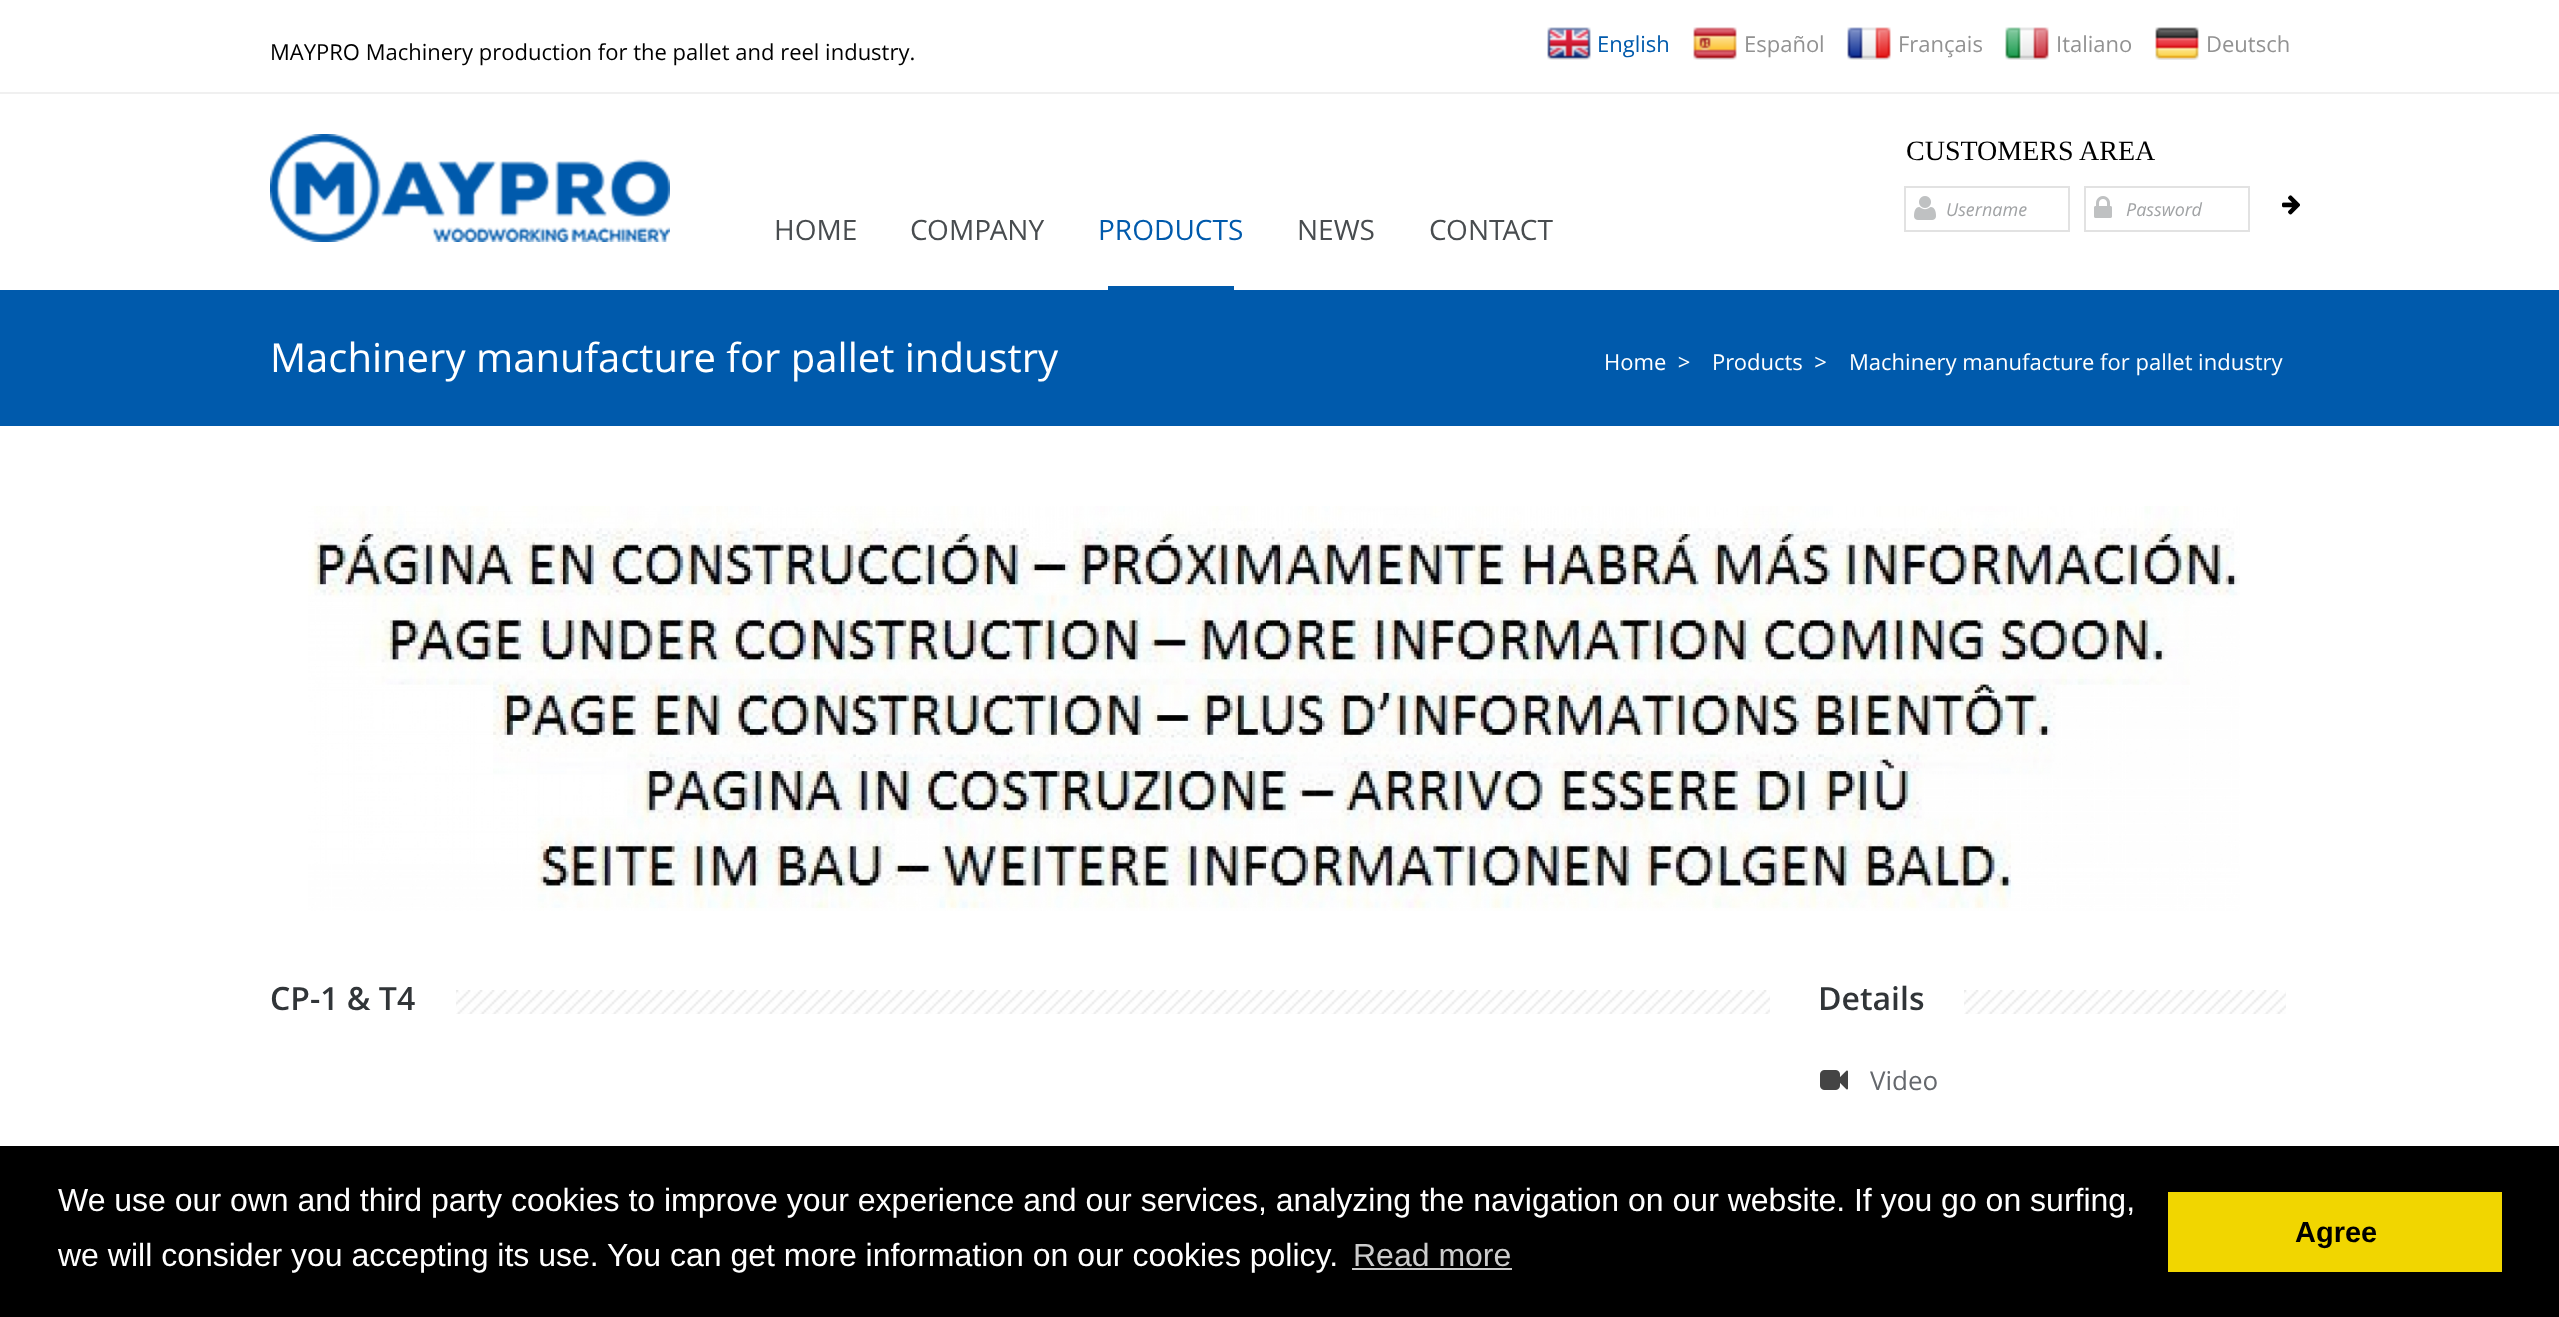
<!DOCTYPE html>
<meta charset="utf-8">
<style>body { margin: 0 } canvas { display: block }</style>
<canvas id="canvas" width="2559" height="1317"></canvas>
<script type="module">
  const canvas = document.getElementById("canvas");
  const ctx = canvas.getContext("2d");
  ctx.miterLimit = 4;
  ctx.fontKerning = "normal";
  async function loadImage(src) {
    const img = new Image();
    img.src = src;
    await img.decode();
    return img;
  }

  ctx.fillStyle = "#ffffff";
  ctx.fillRect(0, 0, 2559, 1317);
  ctx.fillStyle = "#f0f0f0";
  ctx.fillRect(0, 92, 2559, 2);
  ctx.font = "22px 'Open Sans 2'";
  ctx.fillStyle = "#000000";
  ctx.fillText("MAYPRO Machinery production for the pallet and reel industry.", 270, 60);
  ctx.drawImage(await loadImage("img1.png"), 1547, 27, 44, 33);
  ctx.fillStyle = "#005aac";
  ctx.fillText("English", 1597, 52);
  ctx.drawImage(await loadImage("img2.png"), 1693, 27, 44, 33);
  ctx.fillStyle = "#929292";
  ctx.fillText("Español", 1744, 52);
  ctx.drawImage(await loadImage("img3.png"), 1847, 27, 44, 33);
  ctx.fillText("Français", 1898, 52);
  ctx.drawImage(await loadImage("img4.png"), 2005, 27, 44, 33);
  ctx.fillText("Italiano", 2056, 52);
  ctx.drawImage(await loadImage("img5.png"), 2155, 27, 44, 33);
  ctx.fillText("Deutsch", 2206, 52);
  ctx.font = "28px Liberation Serif";
  ctx.fillStyle = "#000000";
  ctx.fillText("CUSTOMERS AREA", 1906, 160);
  ctx.strokeStyle = "#e2e2e2";
  ctx.lineWidth = 2;
  ctx.strokeRect(1905, 187, 164, 44);
  ctx.drawImage(await loadImage("img6.png"), 1914, 196, 22, 24);
  ctx.font = "italic 18px Open Sans";
  ctx.fillStyle = "#a1a3a5";
  ctx.fillText("Username", 1946, 216);
  ctx.strokeRect(2085, 187, 164, 44);
  ctx.drawImage(await loadImage("img7.png"), 2094, 196, 18, 22);
  ctx.fillText("Password", 2126, 216);
  ctx.drawImage(await loadImage("img8.png"), 2282, 195, 18, 20);
  ctx.drawImage(await loadImage("img9.png"), 270, 134, 400, 108);
  ctx.font = "28px Open Sans";
  ctx.fillStyle = "#484c4f";
  ctx.fillText("HOME", 774, 240);
  ctx.fillText("COMPANY", 910, 240);
  ctx.fillStyle = "#005aac";
  ctx.fillText("PRODUCTS", 1098, 240);
  ctx.fillRect(1108, 286, 126, 4);
  ctx.fillStyle = "#484c4f";
  ctx.fillText("NEWS", 1297, 240);
  ctx.fillText("CONTACT", 1429, 240);
  ctx.fillStyle = "#005aac";
  ctx.fillRect(0, 290, 2559, 136);
  ctx.font = "40px Open Sans";
  ctx.fillStyle = "#ffffff";
  ctx.fillText("Machinery manufacture for pallet industry", 270, 372);
  ctx.font = "22px Open Sans";
  ctx.fillText("Home  >", 1604, 370);
  ctx.fillText("Products  >", 1712, 370);
  ctx.fillText("Machinery manufacture for pallet industry", 1849, 370);
  ctx.drawImage(await loadImage("img10.png"), 308, 506, 1932, 405);
  ctx.font = "600 32px Open Sans";
  ctx.fillStyle = "#313538";
  ctx.fillText("CP-1 & T4", 270, 1010);
  ctx.drawImage(await loadImage("img11.png"), 456, 990, 1314, 24);
  ctx.fillText("Details", 1818, 1010);
  ctx.drawImage(await loadImage("img12.png"), 1964, 990, 322, 24);
  ctx.drawImage(await loadImage("img13.png"), 1820, 1070, 28, 20);
  ctx.font = "26px Open Sans";
  ctx.fillStyle = "#65686d";
  ctx.fillText("Video", 1870, 1090);
  ctx.fillStyle = "#000000";
  ctx.fillRect(0, 1146, 2559, 171);
  ctx.font = "32px Liberation Sans";
  ctx.fillStyle = "#ffffff";
  ctx.fillText("We use our own and third party cookies to improve your experience and our services, analyzing the navigation on our website. If you go on surfing,", 58, 1211);
  ctx.fillText("we will consider you accepting its use. You can get more information on our cookies policy.", 58, 1266);
  ctx.fillStyle = "#cccccc";
  ctx.fillText("Read more", 1353, 1266);
  ctx.fillRect(1352, 1268, 160, 2);
  ctx.fillStyle = "#f1d600";
  ctx.fillRect(2168, 1192, 334, 80);
  ctx.font = "bold 29px Liberation Sans";
  ctx.fillStyle = "#000000";
  ctx.fillText("Agree", 2295, 1242);
</script>
